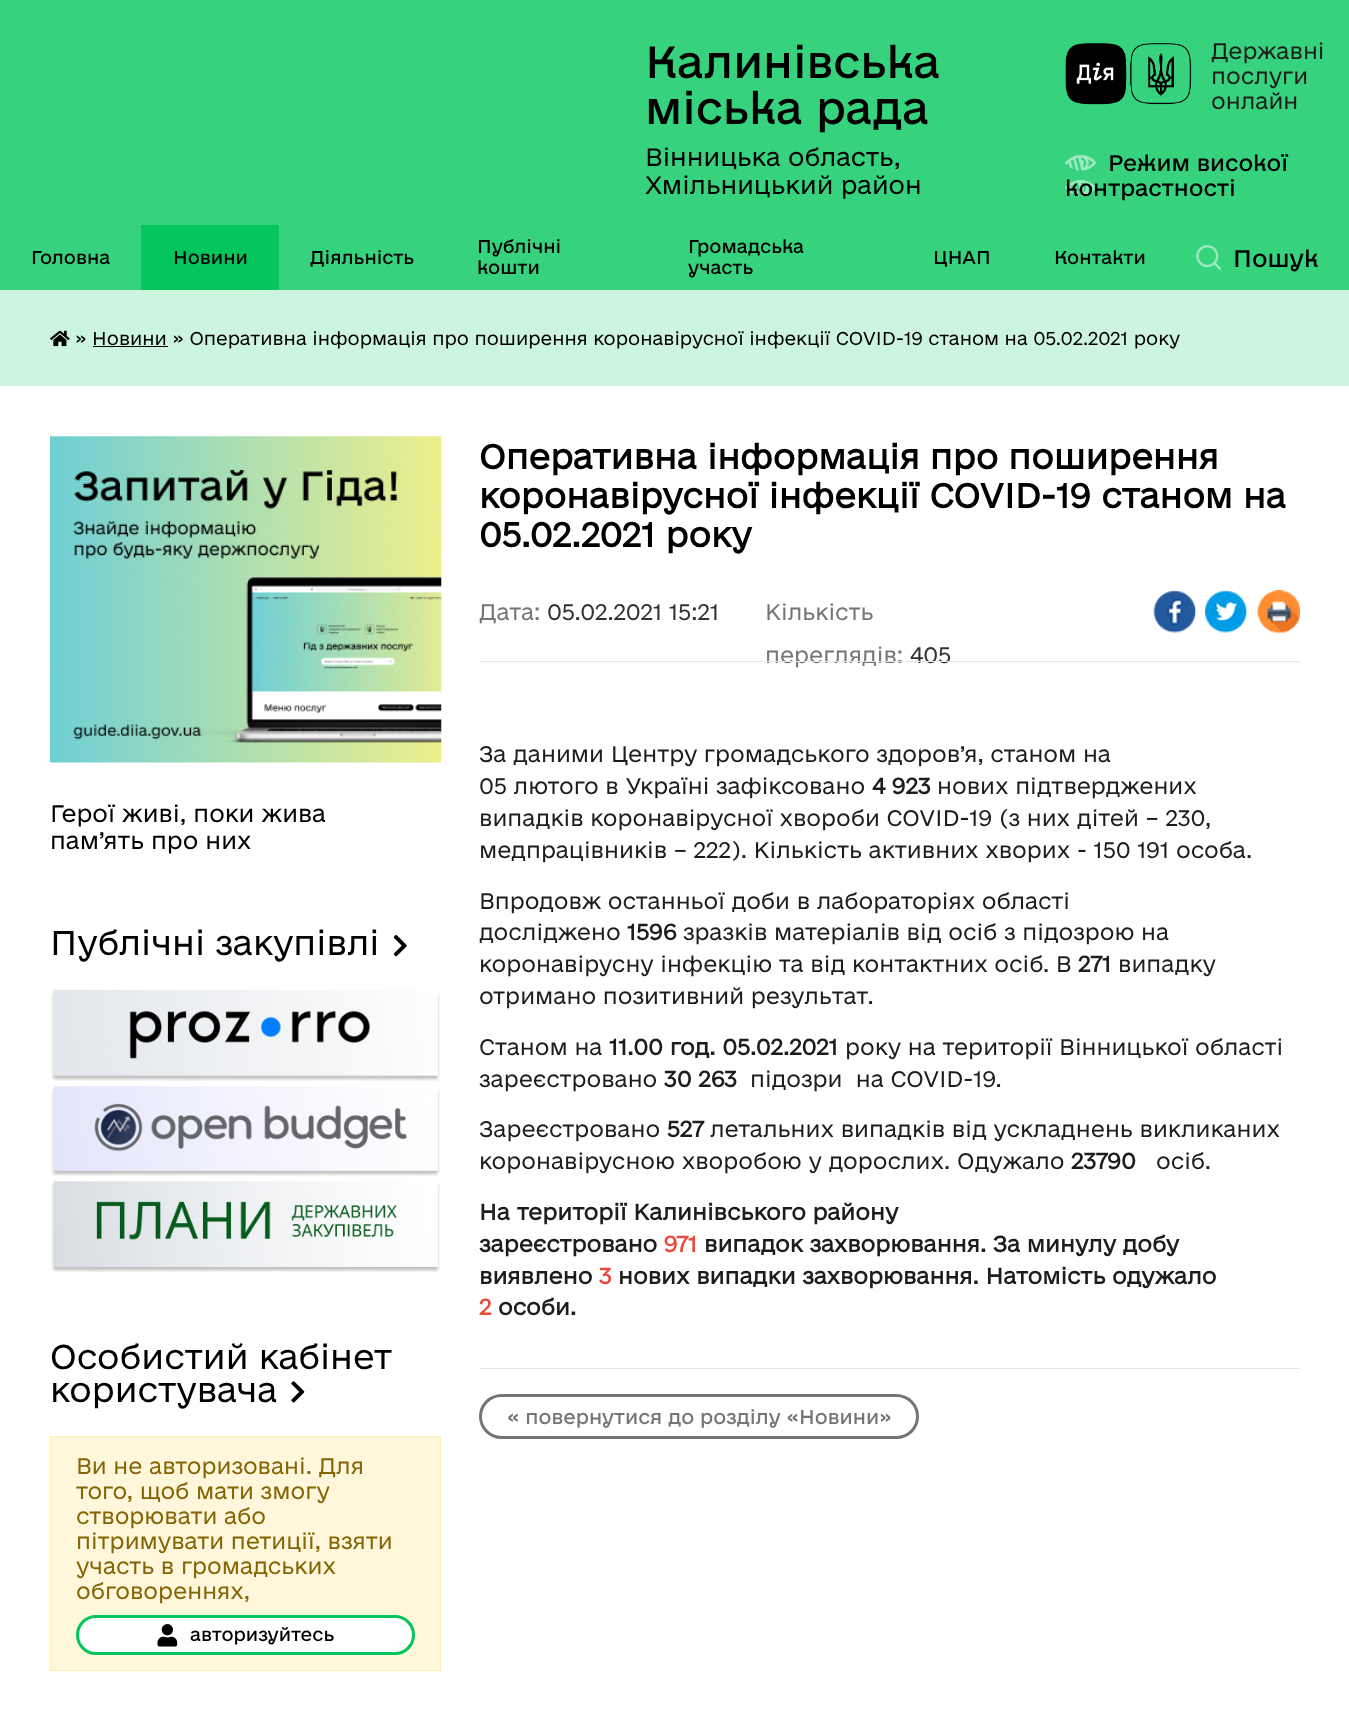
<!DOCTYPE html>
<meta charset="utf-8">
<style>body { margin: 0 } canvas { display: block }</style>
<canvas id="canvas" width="1349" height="1734"></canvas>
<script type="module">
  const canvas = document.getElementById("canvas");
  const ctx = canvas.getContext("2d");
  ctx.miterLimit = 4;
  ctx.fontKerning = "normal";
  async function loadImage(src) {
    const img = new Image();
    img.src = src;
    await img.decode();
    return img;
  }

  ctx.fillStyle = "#ffffff";
  ctx.fillRect(0, 0, 1349, 1734);
  ctx.fillStyle = "#36d27e";
  ctx.fillRect(0, 0, 1349, 290);
  ctx.font = "42.5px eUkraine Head";
  ctx.fillStyle = "#000000";
  ctx.fillText("Калинівська", 645, 78);
  ctx.fillText("міська рада", 645, 124);
  ctx.font = "300 23.75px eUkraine";
  ctx.fillText("Вінницька область,", 645, 166);
  ctx.fillText("Хмільницький район", 645, 194);
  ctx.drawImage(await loadImage("img1.png"), 1065, 43, 127, 62);
  ctx.font = "300 21.25px eUkraine";
  ctx.fillStyle = "#1d1d1b";
  ctx.fillText("Державні", 1211, 59);
  ctx.fillText("послуги", 1211, 84);
  ctx.fillText("онлайн", 1211, 109);
  ctx.drawImage(await loadImage("img2.png"), 1065, 155, 31, 41);
  ctx.font = "21.25px eUkraine Head";
  ctx.fillStyle = "#000000";
  ctx.fillText("Режим високої", 1108, 171);
  ctx.fillText("контрастності", 1065, 196);
  ctx.font = "17.5px eUkraine Head";
  ctx.fillText("Головна", 31, 264);
  ctx.fillStyle = "#04c65d";
  ctx.fillRect(141, 225, 138, 65);
  ctx.fillStyle = "#000000";
  ctx.fillText("Новини", 173, 264);
  ctx.fillText("Діяльність", 310, 264);
  ctx.fillText("Публічні", 477, 253);
  ctx.fillText("кошти", 477, 274);
  ctx.fillText("Громадська", 688, 253);
  ctx.fillText("участь", 688, 274);
  ctx.fillText("ЦНАП", 933, 264);
  ctx.fillText("Контакти", 1054, 264);
  ctx.drawImage(await loadImage("img3.png"), 1196, 245, 25, 25);
  ctx.font = "22.5px eUkraine Head";
  ctx.fillText("Пошук", 1233, 267);
  ctx.fillStyle = "#cdf4df";
  ctx.fillRect(0, 290, 1349, 96);
  ctx.drawImage(await loadImage("img4.png"), 50, 330, 20, 17);
  ctx.font = "300 17.5px eUkraine";
  ctx.fillStyle = "#000000";
  ctx.fillText("» Новини » Оперативна інформація про поширення коронавірусної інфекції COVID-19 станом на 05.02.2021 року", 75, 345);
  ctx.fillRect(93, 346, 75, 1);
  ctx.drawImage(await loadImage("img5.png"), 50, 436, 392, 327);
  ctx.font = "300 22.5px eUkraine";
  ctx.fillText("Герої живі, поки жива", 50, 822);
  ctx.fillText("пам’ять про них", 50, 849);
  ctx.font = "300 32.5px eUkraine";
  ctx.fillText("Публічні закупівлі", 50, 955);
  ctx.drawImage(await loadImage("img6.png"), 393, 935, 14, 22);
  ctx.drawImage(await loadImage("img7.png"), 51, 990, 389, 91);
  ctx.drawImage(await loadImage("img8.png"), 51, 1086, 389, 90);
  ctx.drawImage(await loadImage("img9.png"), 51, 1181, 389, 91);
  ctx.fillText("Особистий кабінет", 50, 1369);
  ctx.fillText("користувача", 50, 1402);
  ctx.drawImage(await loadImage("img10.png"), 291, 1381, 14, 22);
  ctx.fillStyle = "#fff7db";
  ctx.beginPath();
  ctx.rect(50.5, 1436.5, 390, 234);
  ctx.fill();
  ctx.strokeStyle = "#ffefb7";
  ctx.stroke();
  ctx.font = "300 21.25px eUkraine";
  ctx.fillStyle = "#856404";
  ctx.fillText("Ви не авторизовані. Для", 76, 1474);
  ctx.fillText("того, щоб мати змогу", 76, 1499);
  ctx.fillText("створювати або", 76, 1524);
  ctx.fillText("пітримувати петиції, взяти", 76, 1549);
  ctx.fillText("участь в громадських", 76, 1574);
  ctx.fillText("обговореннях,", 76, 1599);
  ctx.fillStyle = "#ffffff";
  ctx.beginPath();
  ctx.roundRect(77.5, 1616.5, 336, 37, 18.5);
  ctx.fill();
  ctx.strokeStyle = "#04c65d";
  ctx.lineWidth = 3;
  ctx.stroke();
  ctx.drawImage(await loadImage("img11.png"), 157, 1624, 21, 23);
  ctx.font = "17.5px eUkraine Head";
  ctx.fillStyle = "#000000";
  ctx.fillText("авторизуйтесь", 190, 1641);
  ctx.font = "bold 32.5px eUkraine";
  ctx.fillText("Оперативна інформація про поширення", 479, 469);
  ctx.fillText("коронавірусної інфекції COVID-19 станом на", 479, 508);
  ctx.fillText("05.02.2021 року", 479, 547);
  ctx.font = "300 21.25px eUkraine";
  ctx.fillStyle = "#757575";
  ctx.fillText("Дата:", 479, 620);
  ctx.fillStyle = "#333333";
  ctx.fillText("05.02.2021 15:21", 547, 620);
  ctx.fillStyle = "#757575";
  ctx.fillText("Кількість", 765, 620);
  ctx.fillText("переглядів:", 765, 663);
  ctx.fillStyle = "#333333";
  ctx.fillText("405", 910, 663);
  ctx.drawImage(await loadImage("img12.png"), 1153, 590, 44, 43);
  ctx.drawImage(await loadImage("img13.png"), 1205, 590, 42, 43);
  ctx.drawImage(await loadImage("img14.png"), 1257, 590, 43, 43);
  ctx.fillStyle = "#e5e5e5";
  ctx.fillRect(479, 661, 821, 1);
  ctx.fillStyle = "#1d1d1b";
  ctx.fillText("За даними Центру громадського здоров’я, станом на", 479, 762);
  ctx.fillText("05 лютого в Україні зафіксовано", 479, 794);
  ctx.font = "bold 21.25px eUkraine";
  ctx.fillText("4 923", 872, 794);
  ctx.font = "300 21.25px eUkraine";
  ctx.fillText("нових підтверджених", 937, 794);
  ctx.fillText("випадків коронавірусної хвороби COVID-19 (з них дітей – 230,", 479, 826);
  ctx.fillText("медпрацівників – 222). Кількість активних хворих - 150 191 особа.", 479, 858);
  ctx.fillText("Впродовж останньої доби в лабораторіях області", 479, 909);
  ctx.fillText("досліджено", 479, 940);
  ctx.font = "bold 21.25px eUkraine";
  ctx.fillText("1596", 627, 940);
  ctx.font = "300 21.25px eUkraine";
  ctx.fillText("зразків матеріалів від осіб з підозрою на", 683, 940);
  ctx.fillText("коронавірусну інфекцію та від контактних осіб. В", 479, 972);
  ctx.font = "bold 21.25px eUkraine";
  ctx.fillText("271", 1078, 972);
  ctx.font = "300 21.25px eUkraine";
  ctx.fillText("випадку", 1118, 972);
  ctx.fillText("отримано позитивний результат.", 479, 1004);
  ctx.fillText("Станом на", 479, 1055);
  ctx.font = "bold 21.25px eUkraine";
  ctx.fillText("11.00 год. 05", 609, 1055);
  ctx.fillText(".02.2021", 750, 1055);
  ctx.font = "300 21.25px eUkraine";
  ctx.fillText("року на території Вінницької області", 845, 1055);
  ctx.fillText("зареєстровано", 479, 1087);
  ctx.font = "bold 21.25px eUkraine";
  ctx.fillText("30 263", 664, 1087);
  ctx.font = "300 21.25px eUkraine";
  ctx.fillText("підозри  на COVID-19.", 750, 1087);
  ctx.fillText("Зареєстровано", 479, 1137);
  ctx.font = "bold 21.25px eUkraine";
  ctx.fillText("527", 667, 1137);
  ctx.font = "300 21.25px eUkraine";
  ctx.fillText("летальних випадків від ускладнень викликаних", 710, 1137);
  ctx.fillText("коронавірусною хворобою у дорослих. Одужало", 479, 1169);
  ctx.font = "bold 21.25px eUkraine";
  ctx.fillText("23790", 1071, 1169);
  ctx.font = "300 21.25px eUkraine";
  ctx.fillText("осіб.", 1156, 1169);
  ctx.font = "bold 21.25px eUkraine";
  ctx.fillText("На території Калинівського району", 479, 1220);
  ctx.fillText("зареєстровано", 479, 1252);
  ctx.fillStyle = "#e74c3c";
  ctx.fillText("971", 664, 1252);
  ctx.fillStyle = "#1d1d1b";
  ctx.fillText("випадок захворювання. За минулу добу", 704, 1252);
  ctx.fillText("виявлено", 479, 1284);
  ctx.fillStyle = "#e74c3c";
  ctx.fillText("3", 599, 1284);
  ctx.fillStyle = "#1d1d1b";
  ctx.fillText("нових випадки захворювання. Натомість одужало", 618, 1284);
  ctx.fillStyle = "#e74c3c";
  ctx.fillText("2", 479, 1315);
  ctx.fillStyle = "#1d1d1b";
  ctx.fillText("особи.", 498, 1315);
  ctx.fillStyle = "#e5e5e5";
  ctx.fillRect(479, 1368, 821, 1);
  ctx.beginPath();
  ctx.roundRect(480.5, 1395.5, 437, 42, 21);
  ctx.strokeStyle = "#757575";
  ctx.stroke();
  ctx.font = "18.75px eUkraine Head";
  ctx.fillStyle = "#757575";
  ctx.fillText("« повернутися до розділу «Новини»", 507, 1424);
</script>
